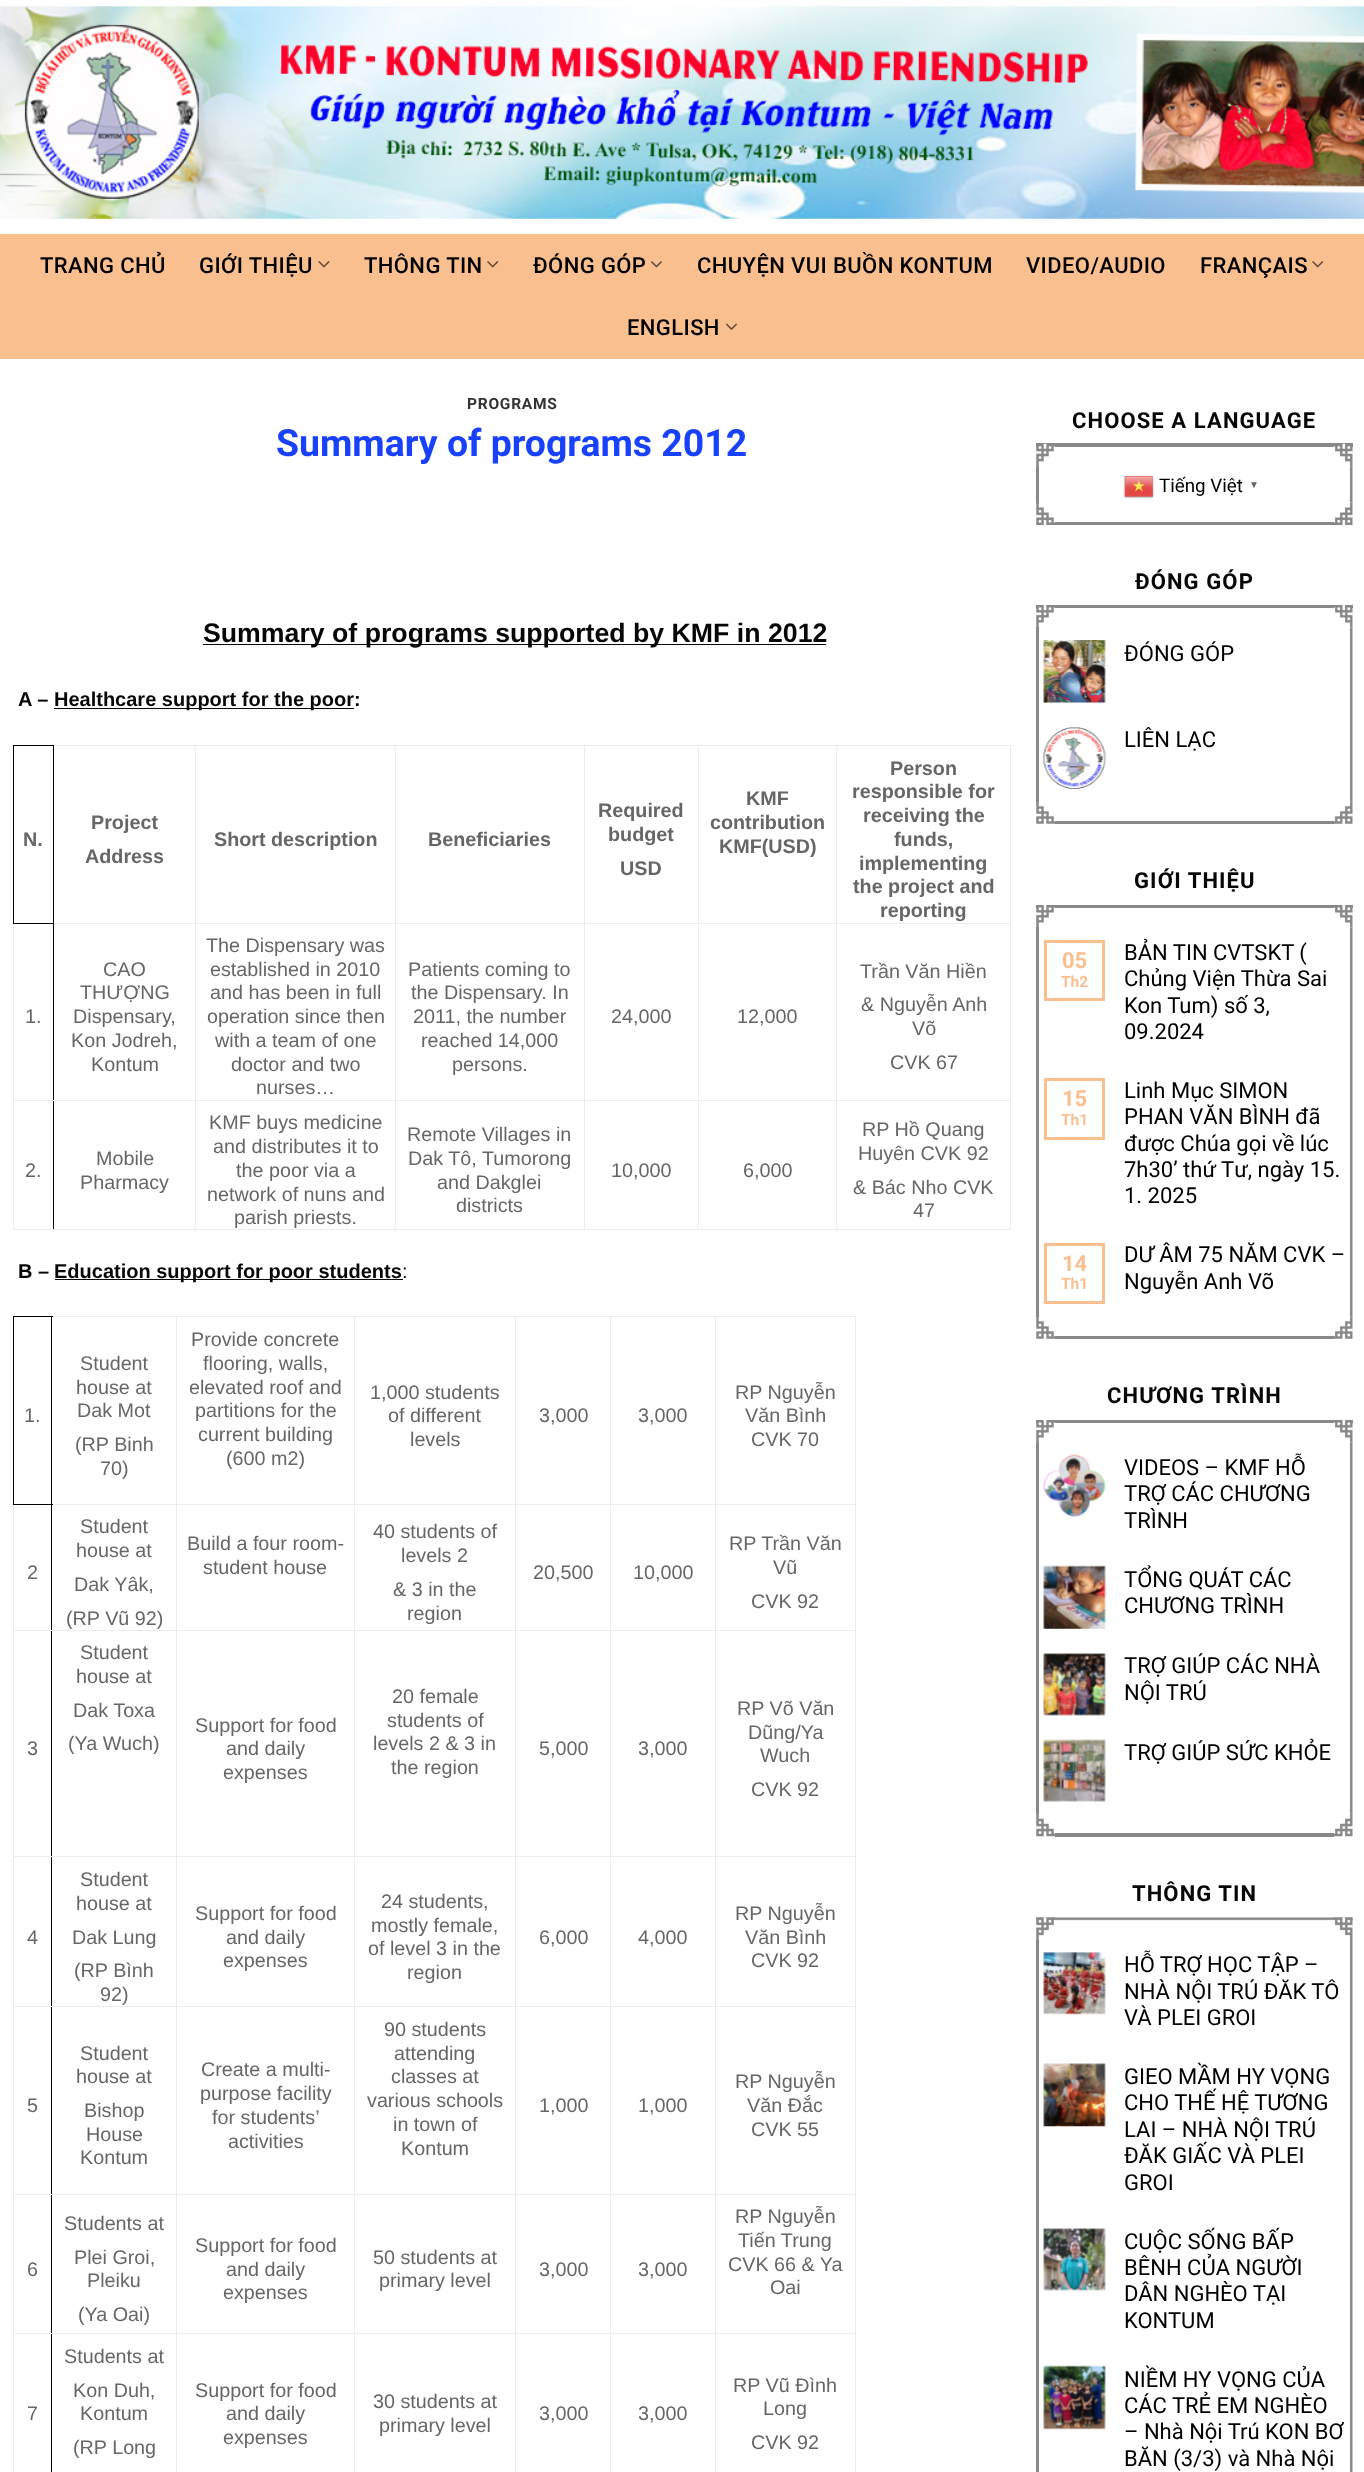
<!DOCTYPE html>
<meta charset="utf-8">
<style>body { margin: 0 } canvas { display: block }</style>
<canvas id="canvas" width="1364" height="2472"></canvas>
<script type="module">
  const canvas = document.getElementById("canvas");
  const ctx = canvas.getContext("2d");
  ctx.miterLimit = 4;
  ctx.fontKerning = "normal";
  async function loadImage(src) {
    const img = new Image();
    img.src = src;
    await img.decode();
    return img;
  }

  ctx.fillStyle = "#ffffff";
  ctx.fillRect(0, 0, 1364, 2472);
  ctx.drawImage(await loadImage("img1.png"), 0, 6, 1364, 213);
  ctx.fillStyle = "#fabf8f";
  ctx.fillRect(0, 234, 1364, 125);
  ctx.letterSpacing = "0.4px";
  ctx.font = "500 22px Roboto";
  ctx.fillStyle = "#000000";
  ctx.fillText("TRANG CHỦ", 40, 273);
  ctx.fillText("GIỚI THIỆU", 199, 273);
  ctx.drawImage(await loadImage("img2.png"), 318, 261, 12, 7);
  ctx.fillText("THÔNG TIN", 364, 273);
  ctx.drawImage(await loadImage("img3.png"), 487, 261, 12, 7);
  ctx.fillText("ĐÓNG GÓP", 533, 273);
  ctx.drawImage(await loadImage("img4.png"), 651, 261, 11, 7);
  ctx.fillText("CHUYỆN VUI BUỒN KONTUM", 697, 273);
  ctx.fillText("VIDEO/AUDIO", 1026, 273);
  ctx.fillText("FRANÇAIS", 1200, 273);
  ctx.drawImage(await loadImage("img3.png"), 1312, 261, 12, 7);
  ctx.fillText("ENGLISH", 627, 335);
  ctx.drawImage(await loadImage("img5.png"), 725, 323, 12, 7);
  ctx.letterSpacing = "0.75px";
  ctx.font = "bold 15.5px Roboto";
  ctx.fillStyle = "#333333";
  ctx.fillText("PROGRAMS", 467, 409);
  ctx.letterSpacing = "0px";
  ctx.font = "bold 37.4px Roboto";
  ctx.fillStyle = "#1741fb";
  ctx.fillText("Summary of programs 2012", 276, 456);
  ctx.fillStyle = "#070707";
  ctx.fillRect(203, 644, 623, 1);
  ctx.font = "bold 26.7px Liberation Sans";
  ctx.fillText("Summary of programs supported by KMF in 2012", 203, 642);
  ctx.font = "bold 20px Liberation Sans";
  ctx.fillText("A –", 18, 706);
  ctx.fillRect(54, 708, 300, 1);
  ctx.fillText("Healthcare support for the poor:", 54, 706);
  ctx.fillStyle = "#ececec";
  ctx.fillRect(54, 745, 957, 1);
  ctx.fillRect(1010, 745, 1, 485);
  ctx.fillRect(54, 1229, 957, 1);
  ctx.fillRect(13, 924, 1, 306);
  ctx.fillStyle = "#000000";
  ctx.fillRect(13, 745, 41, 1);
  ctx.fillStyle = "#ececec";
  ctx.fillRect(836, 1100, 1, 130);
  ctx.fillRect(836, 1100, 175, 1);
  ctx.fillRect(836, 923, 1, 178);
  ctx.fillRect(836, 923, 175, 1);
  ctx.fillRect(836, 745, 1, 179);
  ctx.fillRect(698, 1100, 1, 130);
  ctx.fillRect(698, 1100, 140, 1);
  ctx.fillRect(698, 923, 1, 178);
  ctx.fillRect(698, 923, 140, 1);
  ctx.fillRect(698, 745, 1, 179);
  ctx.fillRect(584, 1100, 1, 130);
  ctx.fillRect(584, 1100, 115, 1);
  ctx.fillRect(584, 923, 1, 178);
  ctx.fillRect(584, 923, 115, 1);
  ctx.fillRect(584, 745, 1, 179);
  ctx.fillRect(395, 1100, 1, 130);
  ctx.fillRect(395, 1100, 190, 1);
  ctx.fillRect(395, 923, 1, 178);
  ctx.fillRect(395, 923, 190, 1);
  ctx.fillRect(395, 745, 1, 179);
  ctx.fillRect(195, 1100, 1, 130);
  ctx.fillRect(195, 1100, 201, 1);
  ctx.fillRect(195, 923, 1, 178);
  ctx.fillRect(195, 923, 201, 1);
  ctx.fillRect(195, 745, 1, 179);
  ctx.fillStyle = "#000000";
  ctx.fillRect(53, 1100, 1, 130);
  ctx.fillStyle = "#ececec";
  ctx.fillRect(53, 1100, 143, 1);
  ctx.fillStyle = "#000000";
  ctx.fillRect(53, 923, 1, 178);
  ctx.fillStyle = "#ececec";
  ctx.fillRect(53, 923, 143, 1);
  ctx.fillStyle = "#000000";
  ctx.fillRect(53, 745, 1, 179);
  ctx.fillRect(13, 923, 41, 1);
  ctx.fillRect(13, 745, 1, 179);
  ctx.font = "bold 19.75px Liberation Sans";
  ctx.fillStyle = "#666666";
  ctx.fillText("N.", 23, 846);
  ctx.fillText("Project", 91, 829);
  ctx.fillText("Address", 85, 863);
  ctx.fillText("Short description", 214, 846);
  ctx.fillText("Beneficiaries", 428, 846);
  ctx.fillText("Required", 598, 817);
  ctx.fillText("budget", 608, 841);
  ctx.fillText("USD", 620, 875);
  ctx.fillText("KMF", 746, 805);
  ctx.fillText("contribution", 710, 829);
  ctx.fillText("KMF(USD)", 719, 853);
  ctx.fillText("Person", 890, 775);
  ctx.fillText("responsible for", 852, 798);
  ctx.fillText("receiving the", 863, 822);
  ctx.fillText("funds,", 894, 846);
  ctx.fillText("implementing", 859, 870);
  ctx.fillText("the project and", 853, 893);
  ctx.fillText("reporting", 880, 917);
  ctx.fillStyle = "#ececec";
  ctx.fillRect(13, 1100, 41, 1);
  ctx.font = "19.75px Liberation Sans";
  ctx.fillStyle = "#666666";
  ctx.fillText("1.", 25, 1023);
  ctx.fillText("CAO", 103, 976);
  ctx.fillText("THƯỢNG", 80, 999);
  ctx.fillText("Dispensary,", 73, 1023);
  ctx.fillText("Kon Jodreh,", 71, 1047);
  ctx.fillText("Kontum", 91, 1071);
  ctx.fillText("The Dispensary was", 206, 952);
  ctx.fillText("established in 2010", 210, 976);
  ctx.fillText("and has been in full", 210, 999);
  ctx.fillText("operation since then", 207, 1023);
  ctx.fillText("with a team of one", 215, 1047);
  ctx.fillText("doctor and two", 231, 1071);
  ctx.fillText("nurses…", 256, 1094);
  ctx.fillText("Patients coming to", 408, 976);
  ctx.fillText("the Dispensary. In", 411, 999);
  ctx.fillText("2011, the number", 413, 1023);
  ctx.fillText("reached 14,000", 421, 1047);
  ctx.fillText("persons.", 452, 1071);
  ctx.fillText("24,000", 611, 1023);
  ctx.fillText("12,000", 737, 1023);
  ctx.fillText("Trần Văn Hiền", 860, 978);
  ctx.fillText("& Nguyễn Anh", 861, 1011);
  ctx.fillText("Võ", 912, 1035);
  ctx.fillText("CVK 67", 890, 1069);
  ctx.fillStyle = "#ececec";
  ctx.fillRect(13, 1229, 41, 1);
  ctx.fillStyle = "#666666";
  ctx.fillText("2.", 25, 1177);
  ctx.fillText("Mobile", 96, 1165);
  ctx.fillText("Pharmacy", 80, 1189);
  ctx.fillText("KMF buys medicine", 209, 1129);
  ctx.fillText("and distributes it to", 213, 1153);
  ctx.fillText("the poor via a", 236, 1177);
  ctx.fillText("network of nuns and", 207, 1201);
  ctx.fillText("parish priests.", 234, 1224);
  ctx.fillText("Remote Villages in", 407, 1141);
  ctx.fillText("Dak Tô, Tumorong", 408, 1165);
  ctx.fillText("and Dakglei", 437, 1189);
  ctx.fillText("districts", 456, 1212);
  ctx.fillText("10,000", 611, 1177);
  ctx.fillText("6,000", 743, 1177);
  ctx.fillText("RP Hồ Quang", 862, 1136);
  ctx.fillText("Huyên CVK 92", 858, 1160);
  ctx.fillText("& Bác Nho CVK", 853, 1194);
  ctx.fillText("47", 913, 1217);
  ctx.font = "bold 20px Liberation Sans";
  ctx.fillStyle = "#070707";
  ctx.fillText("B –", 18, 1278);
  ctx.fillRect(55, 1279, 348, 1);
  ctx.fillText("Education support for poor students", 54, 1278);
  ctx.font = "20px Liberation Sans";
  ctx.fillText(":", 402, 1278);
  ctx.fillStyle = "#ececec";
  ctx.fillRect(53, 1316, 803, 1);
  ctx.fillRect(855, 1316, 1, 1156);
  ctx.fillRect(13, 1505, 1, 967);
  ctx.fillStyle = "#000000";
  ctx.fillRect(13, 1316, 40, 1);
  ctx.fillStyle = "#ececec";
  ctx.fillRect(715, 2333, 1, 139);
  ctx.fillRect(715, 2333, 141, 1);
  ctx.fillRect(715, 2194, 1, 140);
  ctx.fillRect(715, 2194, 141, 1);
  ctx.fillRect(715, 2006, 1, 189);
  ctx.fillRect(715, 2006, 141, 1);
  ctx.fillRect(715, 1856, 1, 152);
  ctx.fillRect(715, 1856, 141, 1);
  ctx.fillRect(715, 1630, 1, 228);
  ctx.fillRect(715, 1630, 141, 1);
  ctx.fillRect(715, 1504, 1, 127);
  ctx.fillRect(715, 1504, 141, 1);
  ctx.fillRect(715, 1316, 1, 189);
  ctx.fillRect(610, 2333, 1, 139);
  ctx.fillRect(610, 2333, 106, 1);
  ctx.fillRect(610, 2194, 1, 140);
  ctx.fillRect(610, 2194, 106, 1);
  ctx.fillRect(610, 2006, 1, 189);
  ctx.fillRect(610, 2006, 106, 1);
  ctx.fillRect(610, 1856, 1, 152);
  ctx.fillRect(610, 1856, 106, 1);
  ctx.fillRect(610, 1630, 1, 228);
  ctx.fillRect(610, 1630, 106, 1);
  ctx.fillRect(610, 1504, 1, 127);
  ctx.fillRect(610, 1504, 106, 1);
  ctx.fillRect(610, 1316, 1, 189);
  ctx.fillRect(515, 2333, 1, 139);
  ctx.fillRect(515, 2333, 96, 1);
  ctx.fillRect(515, 2194, 1, 140);
  ctx.fillRect(515, 2194, 96, 1);
  ctx.fillRect(515, 2006, 1, 189);
  ctx.fillRect(515, 2006, 96, 1);
  ctx.fillRect(515, 1856, 1, 152);
  ctx.fillRect(515, 1856, 96, 1);
  ctx.fillRect(515, 1630, 1, 228);
  ctx.fillRect(515, 1630, 96, 1);
  ctx.fillRect(515, 1504, 1, 127);
  ctx.fillRect(515, 1504, 96, 1);
  ctx.fillRect(515, 1316, 1, 189);
  ctx.fillRect(354, 2333, 1, 139);
  ctx.fillRect(354, 2333, 162, 1);
  ctx.fillRect(354, 2194, 1, 140);
  ctx.fillRect(354, 2194, 162, 1);
  ctx.fillRect(354, 2006, 1, 189);
  ctx.fillRect(354, 2006, 162, 1);
  ctx.fillRect(354, 1856, 1, 152);
  ctx.fillRect(354, 1856, 162, 1);
  ctx.fillRect(354, 1630, 1, 228);
  ctx.fillRect(354, 1630, 162, 1);
  ctx.fillRect(354, 1504, 1, 127);
  ctx.fillRect(354, 1504, 162, 1);
  ctx.fillRect(354, 1316, 1, 189);
  ctx.fillRect(176, 2333, 1, 139);
  ctx.fillRect(176, 2333, 179, 1);
  ctx.fillRect(176, 2194, 1, 140);
  ctx.fillRect(176, 2194, 179, 1);
  ctx.fillRect(176, 2006, 1, 189);
  ctx.fillRect(176, 2006, 179, 1);
  ctx.fillRect(176, 1856, 1, 152);
  ctx.fillRect(176, 1856, 179, 1);
  ctx.fillRect(176, 1630, 1, 228);
  ctx.fillRect(176, 1630, 179, 1);
  ctx.fillRect(176, 1504, 1, 127);
  ctx.fillRect(176, 1504, 179, 1);
  ctx.fillRect(176, 1316, 1, 189);
  ctx.fillStyle = "#000000";
  ctx.fillRect(51, 2333, 1, 139);
  ctx.fillStyle = "#ececec";
  ctx.fillRect(51, 2333, 127, 1);
  ctx.fillStyle = "#000000";
  ctx.fillRect(51, 2194, 1, 140);
  ctx.fillStyle = "#ececec";
  ctx.fillRect(51, 2194, 127, 1);
  ctx.fillStyle = "#000000";
  ctx.fillRect(51, 2006, 1, 189);
  ctx.fillStyle = "#ececec";
  ctx.fillRect(51, 2006, 127, 1);
  ctx.fillStyle = "#000000";
  ctx.fillRect(51, 1856, 1, 152);
  ctx.fillStyle = "#ececec";
  ctx.fillRect(51, 1856, 127, 1);
  ctx.fillStyle = "#000000";
  ctx.fillRect(51, 1630, 1, 228);
  ctx.fillStyle = "#ececec";
  ctx.fillRect(51, 1630, 127, 1);
  ctx.fillStyle = "#000000";
  ctx.fillRect(51, 1504, 1, 127);
  ctx.fillStyle = "#ececec";
  ctx.fillRect(51, 1504, 127, 1);
  ctx.fillStyle = "#000000";
  ctx.fillRect(51, 1316, 1, 189);
  ctx.fillRect(13, 1504, 40, 1);
  ctx.fillRect(13, 1316, 1, 189);
  ctx.font = "19.75px Liberation Sans";
  ctx.fillStyle = "#666666";
  ctx.fillText("1.", 24, 1422);
  ctx.fillText("Student", 80, 1370);
  ctx.fillText("house at", 76, 1394);
  ctx.fillText("Dak Mot", 77, 1417);
  ctx.fillText("(RP Binh", 75, 1451);
  ctx.fillText("70)", 100, 1475);
  ctx.fillText("Provide concrete", 191, 1346);
  ctx.fillText("flooring, walls,", 203, 1370);
  ctx.fillText("elevated roof and", 189, 1394);
  ctx.fillText("partitions for the", 195, 1417);
  ctx.fillText("current building", 198, 1441);
  ctx.fillText("(600 m2)", 226, 1465);
  ctx.fillText("1,000 students", 370, 1399);
  ctx.fillText("of different", 388, 1422);
  ctx.fillText("levels", 410, 1446);
  ctx.fillText("3,000", 539, 1422);
  ctx.fillText("3,000", 638, 1422);
  ctx.fillText("RP Nguyễn", 735, 1399);
  ctx.fillText("Văn Bình", 745, 1422);
  ctx.fillText("CVK 70", 751, 1446);
  ctx.fillStyle = "#ececec";
  ctx.fillRect(13, 1630, 40, 1);
  ctx.fillStyle = "#666666";
  ctx.fillText("2", 27, 1579);
  ctx.fillText("Student", 80, 1533);
  ctx.fillText("house at", 76, 1557);
  ctx.fillText("Dak Yâk,", 74, 1591);
  ctx.fillText("(RP Vũ 92)", 66, 1625);
  ctx.fillText("Build a four room-", 187, 1550);
  ctx.fillText("student house", 203, 1574);
  ctx.fillText("40 students of", 373, 1538);
  ctx.fillText("levels 2", 401, 1562);
  ctx.fillText("& 3 in the", 393, 1596);
  ctx.fillText("region", 407, 1620);
  ctx.fillText("20,500", 533, 1579);
  ctx.fillText("10,000", 633, 1579);
  ctx.fillText("RP Trần Văn", 729, 1550);
  ctx.fillText("Vũ", 773, 1574);
  ctx.fillText("CVK 92", 751, 1608);
  ctx.fillStyle = "#ececec";
  ctx.fillRect(13, 1856, 40, 1);
  ctx.fillStyle = "#666666";
  ctx.fillText("3", 27, 1755);
  ctx.fillText("Student", 80, 1659);
  ctx.fillText("house at", 76, 1683);
  ctx.fillText("Dak Toxa", 73, 1717);
  ctx.fillText("(Ya Wuch)", 68, 1750);
  ctx.fillText("Support for food", 195, 1732);
  ctx.fillText("and daily", 226, 1755);
  ctx.fillText("expenses", 223, 1779);
  ctx.fillText("20 female", 392, 1703);
  ctx.fillText("students of", 387, 1727);
  ctx.fillText("levels 2 & 3 in", 373, 1750);
  ctx.fillText("the region", 391, 1774);
  ctx.fillText("5,000", 539, 1755);
  ctx.fillText("3,000", 638, 1755);
  ctx.fillText("RP Võ Văn", 737, 1715);
  ctx.fillText("Dũng/Ya", 748, 1739);
  ctx.fillText("Wuch", 760, 1762);
  ctx.fillText("CVK 92", 751, 1796);
  ctx.fillStyle = "#ececec";
  ctx.fillRect(13, 2006, 40, 1);
  ctx.fillStyle = "#666666";
  ctx.fillText("4", 27, 1944);
  ctx.fillText("Student", 80, 1886);
  ctx.fillText("house at", 76, 1910);
  ctx.fillText("Dak Lung", 72, 1944);
  ctx.fillText("(RP Bình", 74, 1977);
  ctx.fillText("92)", 100, 2001);
  ctx.fillText("Support for food", 195, 1920);
  ctx.fillText("and daily", 226, 1944);
  ctx.fillText("expenses", 223, 1967);
  ctx.fillText("24 students,", 381, 1908);
  ctx.fillText("mostly female,", 371, 1932);
  ctx.fillText("of level 3 in the", 368, 1955);
  ctx.fillText("region", 407, 1979);
  ctx.fillText("6,000", 539, 1944);
  ctx.fillText("4,000", 638, 1944);
  ctx.fillText("RP Nguyễn", 735, 1920);
  ctx.fillText("Văn Bình", 745, 1944);
  ctx.fillText("CVK 92", 751, 1967);
  ctx.fillStyle = "#ececec";
  ctx.fillRect(13, 2194, 40, 1);
  ctx.fillStyle = "#666666";
  ctx.fillText("5", 27, 2112);
  ctx.fillText("Student", 80, 2060);
  ctx.fillText("house at", 76, 2083);
  ctx.fillText("Bishop", 84, 2117);
  ctx.fillText("House", 86, 2141);
  ctx.fillText("Kontum", 80, 2164);
  ctx.fillText("Create a multi-", 201, 2076);
  ctx.fillText("purpose facility", 200, 2100);
  ctx.fillText("for students’", 212, 2124);
  ctx.fillText("activities", 228, 2148);
  ctx.fillText("90 students", 384, 2036);
  ctx.fillText("attending", 394, 2060);
  ctx.fillText("classes at", 391, 2083);
  ctx.fillText("various schools", 367, 2107);
  ctx.fillText("in town of", 393, 2131);
  ctx.fillText("Kontum", 401, 2155);
  ctx.fillText("1,000", 539, 2112);
  ctx.fillText("1,000", 638, 2112);
  ctx.fillText("RP Nguyễn", 735, 2088);
  ctx.fillText("Văn Đắc", 747, 2112);
  ctx.fillText("CVK 55", 751, 2136);
  ctx.fillStyle = "#ececec";
  ctx.fillRect(13, 2333, 40, 1);
  ctx.fillStyle = "#666666";
  ctx.fillText("6", 27, 2276);
  ctx.fillText("Students at", 64, 2230);
  ctx.fillText("Plei Groi,", 74, 2264);
  ctx.fillText("Pleiku", 87, 2287);
  ctx.fillText("(Ya Oai)", 78, 2321);
  ctx.fillText("Support for food", 195, 2252);
  ctx.fillText("and daily", 226, 2276);
  ctx.fillText("expenses", 223, 2299);
  ctx.fillText("50 students at", 373, 2264);
  ctx.fillText("primary level", 379, 2287);
  ctx.fillText("3,000", 539, 2276);
  ctx.fillText("3,000", 638, 2276);
  ctx.fillText("RP Nguyễn", 735, 2223);
  ctx.fillText("Tiến Trung", 738, 2247);
  ctx.fillText("CVK 66 & Ya", 728, 2271);
  ctx.fillText("Oai", 770, 2294);
  ctx.fillText("7", 27, 2420);
  ctx.fillText("Students at", 64, 2363);
  ctx.fillText("Kon Duh,", 73, 2397);
  ctx.fillText("Kontum", 80, 2420);
  ctx.fillText("(RP Long", 73, 2454);
  ctx.fillText("Support for food", 195, 2397);
  ctx.fillText("and daily", 226, 2420);
  ctx.fillText("expenses", 223, 2444);
  ctx.fillText("30 students at", 373, 2408);
  ctx.fillText("primary level", 379, 2432);
  ctx.fillText("3,000", 539, 2420);
  ctx.fillText("3,000", 638, 2420);
  ctx.fillText("RP Vũ Đình", 733, 2392);
  ctx.fillText("Long", 763, 2415);
  ctx.fillText("CVK 92", 751, 2449);
  ctx.letterSpacing = "1.1px";
  ctx.font = "bold 22px Roboto";
  ctx.fillStyle = "#070707";
  ctx.fillText("CHOOSE A LANGUAGE", 1072, 428);
  ctx.fillStyle = "#888888";
  ctx.fillRect(1036, 443, 317, 4);
  ctx.drawImage(await loadImage("img6.png"), 1036, 443, 19, 24);
  ctx.drawImage(await loadImage("img7.png"), 1333, 443, 20, 24);
  ctx.fillRect(1036, 466, 3, 37);
  ctx.drawImage(await loadImage("img8.png"), 1349, 466, 4, 37);
  ctx.drawImage(await loadImage("img9.png"), 1123, 475, 31, 24);
  ctx.letterSpacing = "0px";
  ctx.font = "18.75px Roboto";
  ctx.fillStyle = "#000000";
  ctx.fillText("Tiếng Việt", 1159, 492);
  ctx.font = "bold 10px Liberation Sans";
  ctx.fillStyle = "#666666";
  ctx.fillText("▼", 1249, 488);
  ctx.drawImage(await loadImage("img10.png"), 1036, 503, 19, 22);
  ctx.drawImage(await loadImage("img11.png"), 1334, 502, 19, 23);
  ctx.fillStyle = "#888888";
  ctx.fillRect(1055, 522, 279, 3);
  ctx.letterSpacing = "1.1px";
  ctx.font = "bold 22px Roboto";
  ctx.fillStyle = "#070707";
  ctx.fillText("ĐÓNG GÓP", 1135, 589);
  ctx.fillStyle = "#888888";
  ctx.fillRect(1036, 605, 317, 3);
  ctx.drawImage(await loadImage("img12.png"), 1036, 605, 19, 23);
  ctx.drawImage(await loadImage("img13.png"), 1333, 605, 20, 23);
  ctx.fillRect(1036, 627, 3, 175);
  ctx.drawImage(await loadImage("img14.png"), 1349, 627, 4, 175);
  ctx.drawImage(await loadImage("img15.png"), 1043, 640, 63, 63);
  ctx.letterSpacing = "0px";
  ctx.font = "22px Roboto";
  ctx.fillStyle = "#000000";
  ctx.fillText("ĐÓNG GÓP", 1124, 661);
  ctx.drawImage(await loadImage("img16.png"), 1043, 727, 63, 62);
  ctx.fillText("LIÊN LẠC", 1124, 747);
  ctx.drawImage(await loadImage("img17.png"), 1036, 802, 19, 22);
  ctx.drawImage(await loadImage("img18.png"), 1334, 801, 19, 23);
  ctx.fillStyle = "#888888";
  ctx.fillRect(1055, 821, 279, 3);
  ctx.letterSpacing = "1.1px";
  ctx.font = "bold 22px Roboto";
  ctx.fillStyle = "#070707";
  ctx.fillText("GIỚI THIỆU", 1134, 888);
  ctx.fillStyle = "#888888";
  ctx.fillRect(1036, 905, 317, 3);
  ctx.drawImage(await loadImage("img12.png"), 1036, 905, 19, 23);
  ctx.drawImage(await loadImage("img13.png"), 1333, 905, 20, 23);
  ctx.fillRect(1036, 927, 3, 390);
  ctx.drawImage(await loadImage("img19.png"), 1349, 927, 4, 390);
  ctx.strokeStyle = "#fabf8f";
  ctx.lineWidth = 3;
  ctx.strokeRect(1045.5, 941.5, 58, 58);
  ctx.letterSpacing = "0px";
  ctx.fillStyle = "#fabf8f";
  ctx.fillText("05", 1062, 968);
  ctx.font = "bold 15.5px Roboto";
  ctx.fillText("Th2", 1061, 987);
  ctx.font = "22px Roboto";
  ctx.fillStyle = "#000000";
  ctx.fillText("BẢN TIN CVTSKT (", 1124, 960);
  ctx.fillText("Chủng Viện Thừa Sai", 1124, 986);
  ctx.fillText("Kon Tum) số 3,", 1124, 1013);
  ctx.fillText("09.2024", 1124, 1039);
  ctx.strokeRect(1045.5, 1079.5, 58, 59);
  ctx.font = "bold 22px Roboto";
  ctx.fillStyle = "#fabf8f";
  ctx.fillText("15", 1062, 1106);
  ctx.font = "bold 15.5px Roboto";
  ctx.fillText("Th1", 1061, 1125);
  ctx.font = "22px Roboto";
  ctx.fillStyle = "#000000";
  ctx.fillText("Linh Mục SIMON", 1124, 1098);
  ctx.fillText("PHAN VĂN BÌNH đã", 1124, 1124);
  ctx.fillText("được Chúa gọi về lúc", 1124, 1151);
  ctx.fillText("7h30’ thứ Tư, ngày 15.", 1124, 1177);
  ctx.fillText("1. 2025", 1124, 1203);
  ctx.strokeRect(1045.5, 1244.5, 58, 58);
  ctx.font = "bold 22px Roboto";
  ctx.fillStyle = "#fabf8f";
  ctx.fillText("14", 1062, 1271);
  ctx.font = "bold 15.5px Roboto";
  ctx.fillText("Th1", 1061, 1289);
  ctx.font = "22px Roboto";
  ctx.fillStyle = "#000000";
  ctx.fillText("DƯ ÂM 75 NĂM CVK –", 1124, 1262);
  ctx.fillText("Nguyễn Anh Võ", 1124, 1289);
  ctx.drawImage(await loadImage("img17.png"), 1036, 1317, 19, 22);
  ctx.drawImage(await loadImage("img18.png"), 1334, 1316, 19, 23);
  ctx.fillStyle = "#888888";
  ctx.fillRect(1055, 1336, 279, 3);
  ctx.letterSpacing = "1.1px";
  ctx.font = "bold 22px Roboto";
  ctx.fillStyle = "#070707";
  ctx.fillText("CHƯƠNG TRÌNH", 1107, 1403);
  ctx.fillStyle = "#888888";
  ctx.fillRect(1036, 1420, 317, 3);
  ctx.drawImage(await loadImage("img12.png"), 1036, 1420, 19, 23);
  ctx.drawImage(await loadImage("img13.png"), 1333, 1420, 20, 23);
  ctx.fillRect(1036, 1442, 3, 372);
  ctx.drawImage(await loadImage("img20.png"), 1349, 1442, 4, 372);
  ctx.drawImage(await loadImage("img21.png"), 1043, 1454, 63, 63);
  ctx.letterSpacing = "0px";
  ctx.font = "22px Roboto";
  ctx.fillStyle = "#000000";
  ctx.fillText("VIDEOS – KMF HỖ", 1124, 1475);
  ctx.fillText("TRỢ CÁC CHƯƠNG", 1124, 1501);
  ctx.fillText("TRÌNH", 1124, 1528);
  ctx.drawImage(await loadImage("img22.png"), 1043, 1565, 63, 64);
  ctx.fillText("TỔNG QUÁT CÁC", 1124, 1587);
  ctx.fillText("CHƯƠNG TRÌNH", 1124, 1613);
  ctx.drawImage(await loadImage("img23.png"), 1043, 1653, 63, 63);
  ctx.fillText("TRỢ GIÚP CÁC NHÀ", 1124, 1673);
  ctx.fillText("NỘI TRÚ", 1124, 1700);
  ctx.drawImage(await loadImage("img24.png"), 1043, 1739, 63, 63);
  ctx.fillText("TRỢ GIÚP SỨC KHỎE", 1124, 1760);
  ctx.drawImage(await loadImage("img25.png"), 1036, 1814, 19, 23);
  ctx.drawImage(await loadImage("img26.png"), 1334, 1813, 19, 24);
  ctx.fillStyle = "#888888";
  ctx.fillRect(1055, 1833, 279, 4);
  ctx.letterSpacing = "1.1px";
  ctx.font = "bold 22px Roboto";
  ctx.fillStyle = "#070707";
  ctx.fillText("THÔNG TIN", 1132, 1901);
  ctx.drawImage(await loadImage("img27.png"), 1036, 1917, 317, 4);
  ctx.drawImage(await loadImage("img28.png"), 1036, 1917, 19, 23);
  ctx.drawImage(await loadImage("img29.png"), 1333, 1917, 20, 23);
  ctx.fillStyle = "#888888";
  ctx.fillRect(1036, 1940, 3, 532);
  ctx.drawImage(await loadImage("img30.png"), 1349, 1940, 4, 532);
  ctx.drawImage(await loadImage("img31.png"), 1043, 1952, 63, 63);
  ctx.letterSpacing = "0px";
  ctx.font = "22px Roboto";
  ctx.fillStyle = "#000000";
  ctx.fillText("HỖ TRỢ HỌC TẬP –", 1124, 1972);
  ctx.fillText("NHÀ NỘI TRÚ ĐĂK TÔ", 1124, 1999);
  ctx.fillText("VÀ PLEI GROI", 1124, 2025);
  ctx.drawImage(await loadImage("img32.png"), 1043, 2063, 63, 64);
  ctx.fillText("GIEO MẦM HY VỌNG", 1124, 2084);
  ctx.fillText("CHO THẾ HỆ TƯƠNG", 1124, 2110);
  ctx.fillText("LAI – NHÀ NỘI TRÚ", 1124, 2137);
  ctx.fillText("ĐĂK GIẤC VÀ PLEI", 1124, 2163);
  ctx.fillText("GROI", 1124, 2190);
  ctx.drawImage(await loadImage("img33.png"), 1043, 2228, 63, 63);
  ctx.fillText("CUỘC SỐNG BẤP", 1124, 2249);
  ctx.fillText("BÊNH CỦA NGƯỜI", 1124, 2275);
  ctx.fillText("DÂN NGHÈO TẠI", 1124, 2301);
  ctx.fillText("KONTUM", 1124, 2328);
  ctx.drawImage(await loadImage("img34.png"), 1043, 2365, 63, 65);
  ctx.fillText("NIỀM HY VỌNG CỦA", 1124, 2387);
  ctx.fillText("CÁC TRẺ EM NGHÈO", 1124, 2413);
  ctx.fillText("– Nhà Nội Trú KON BƠ", 1124, 2439);
  ctx.fillText("BĂN (3/3) và Nhà Nội", 1124, 2466);
</script>
